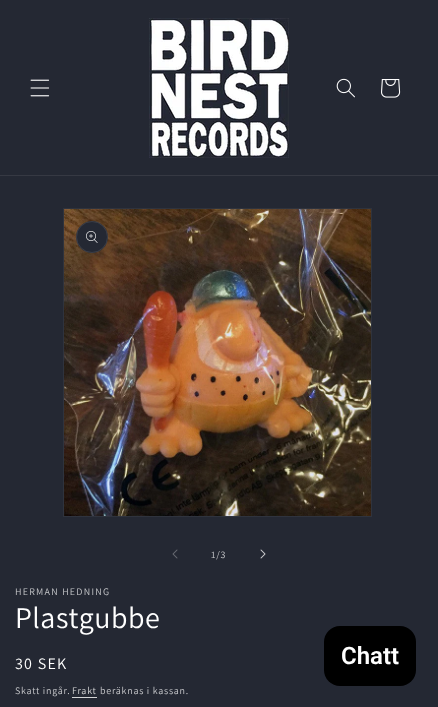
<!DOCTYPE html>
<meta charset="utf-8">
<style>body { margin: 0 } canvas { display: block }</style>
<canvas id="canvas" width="438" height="707"></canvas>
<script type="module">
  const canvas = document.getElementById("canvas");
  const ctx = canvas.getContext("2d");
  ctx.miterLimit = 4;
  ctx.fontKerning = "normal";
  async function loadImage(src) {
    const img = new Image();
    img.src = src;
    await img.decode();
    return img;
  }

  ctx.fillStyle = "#242833";
  ctx.fillRect(0, 0, 438, 707);
  ctx.fillStyle = "#363943";
  ctx.fillRect(0, 175, 438, 1);
  ctx.drawImage(await loadImage("img1.png"), 30, 79, 20, 18);
  ctx.drawImage(await loadImage("img2.png"), 149, 18, 140, 140);
  ctx.drawImage(await loadImage("img3.png"), 336, 78, 19, 20);
  ctx.drawImage(await loadImage("img4.png"), 381, 79, 20, 19);
  ctx.strokeStyle = "#2f333d";
  ctx.strokeRect(63.5, 208.5, 308, 308);
  ctx.drawImage(await loadImage("img5.png"), 64, 209, 307, 307);
  ctx.fillStyle = "#242833";
  ctx.beginPath();
  ctx.arc(92, 237, 16, 0, Math.PI * 2);
  ctx.fill();
  ctx.beginPath();
  ctx.arc(92, 237, 15.5, 0, Math.PI * 2);
  ctx.strokeStyle = "rgba(255, 255, 255, 0.1)";
  ctx.stroke();
  ctx.drawImage(await loadImage("img6.png"), 86, 231, 12, 12);
  ctx.drawImage(await loadImage("img7.png"), 172, 549, 6, 10);
  ctx.letterSpacing = "0.75px";
  ctx.font = "10px Assistant";
  ctx.fillStyle = "#c8c9cc";
  ctx.fillText("1/3", 211, 558);
  ctx.drawImage(await loadImage("img8.png"), 260, 549, 6, 10);
  ctx.letterSpacing = "1.25px";
  ctx.fillText("HERMAN HEDNING", 15, 595);
  ctx.letterSpacing = "0.5px";
  ctx.font = "30px Assistant";
  ctx.fillStyle = "#ffffff";
  ctx.fillText("Plastgubbe", 15, 628);
  ctx.letterSpacing = "1.25px";
  ctx.font = "16px Assistant";
  ctx.fillText("30 SEK", 15, 669);
  ctx.letterSpacing = "0.75px";
  ctx.font = "10px Assistant";
  ctx.fillStyle = "#c8c9cc";
  ctx.fillText("Skatt ingår.", 15, 694);
  ctx.fillStyle = "#d4d5d6";
  ctx.fillText("Frakt", 72, 694);
  ctx.fillRect(72, 697, 25, 1);
  ctx.fillStyle = "#c8c9cc";
  ctx.fillText("beräknas i kassan.", 100, 694);
  ctx.fillStyle = "#000000";
  ctx.beginPath();
  ctx.roundRect(324, 626, 92, 60, 16);
  ctx.fill();
  ctx.letterSpacing = "0px";
  ctx.font = "600 24px Roboto";
  ctx.fillStyle = "#ffffff";
  ctx.fillText("Chatt", 341, 664);
</script>
